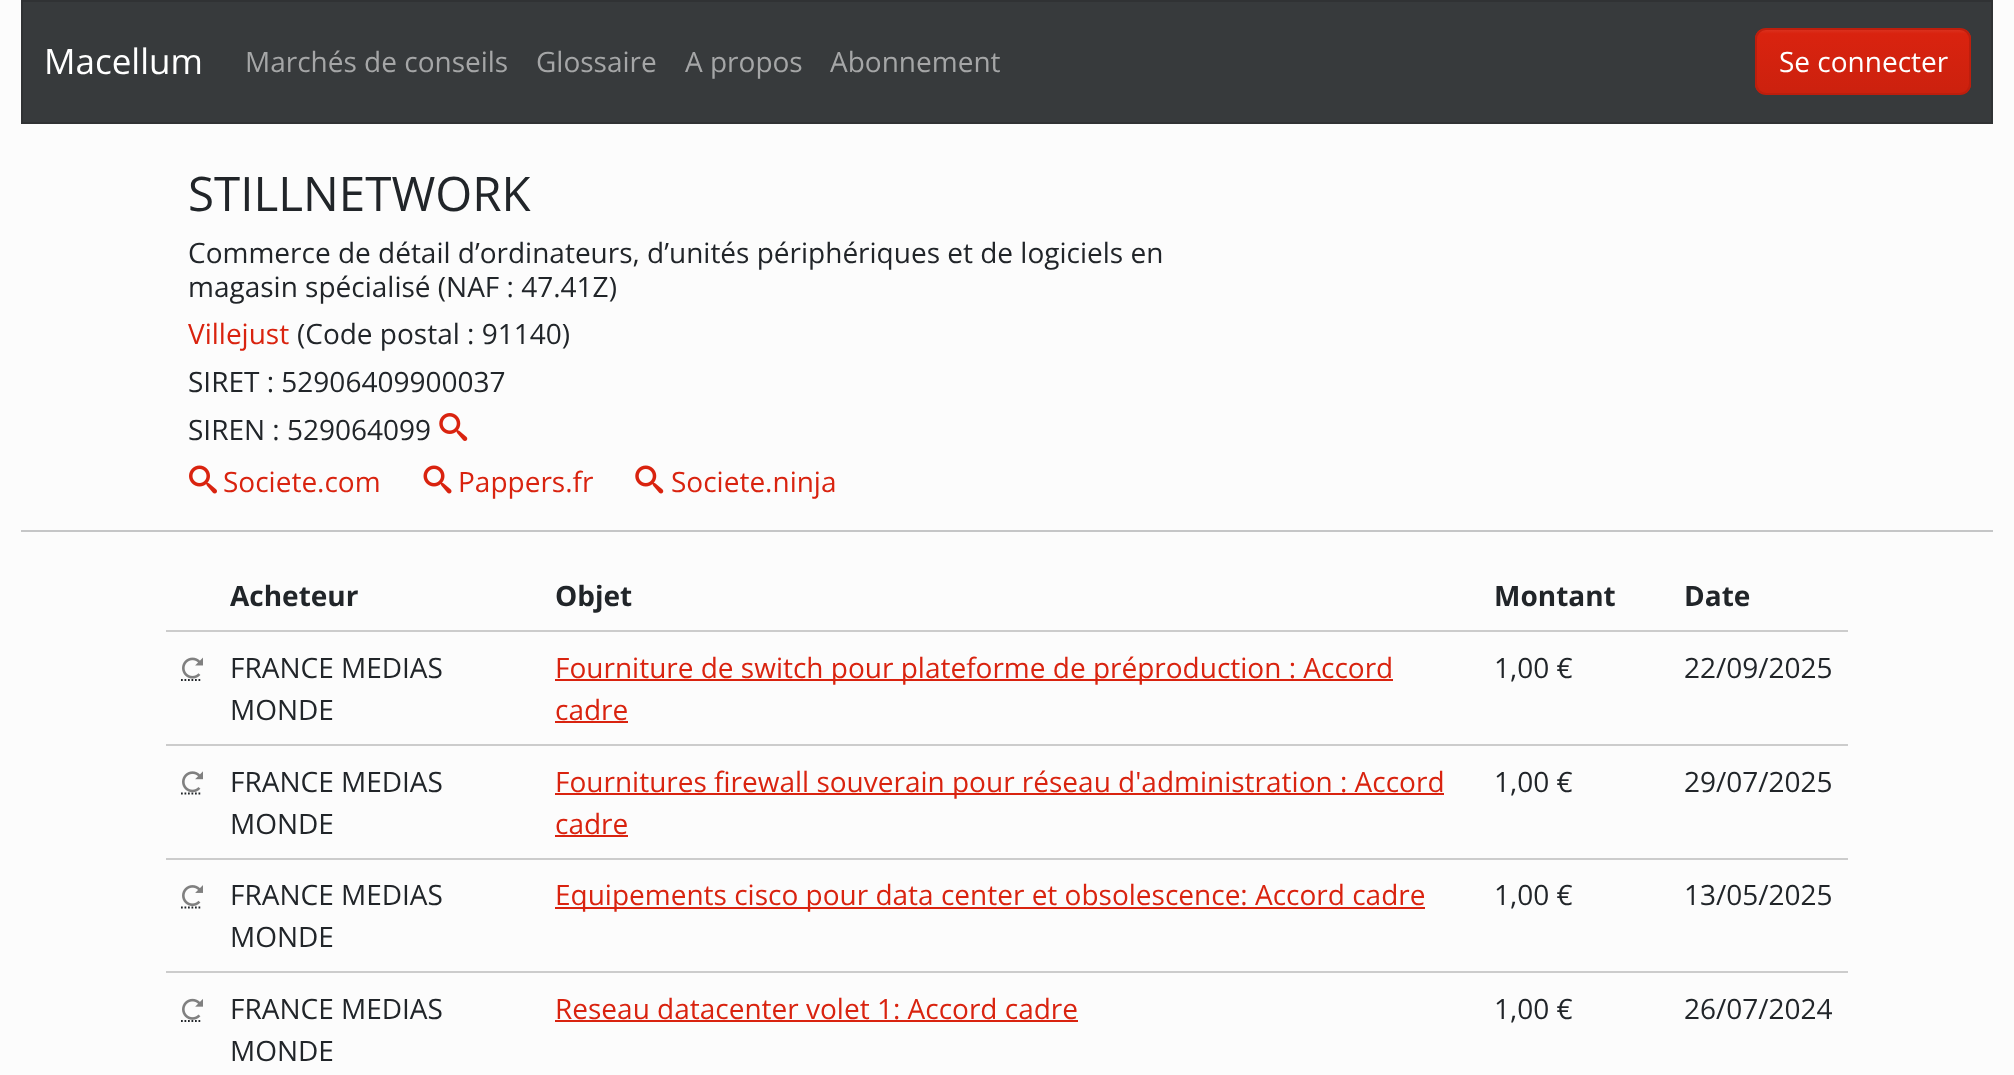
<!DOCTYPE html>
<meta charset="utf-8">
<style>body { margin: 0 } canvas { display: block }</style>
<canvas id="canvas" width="2014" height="1075"></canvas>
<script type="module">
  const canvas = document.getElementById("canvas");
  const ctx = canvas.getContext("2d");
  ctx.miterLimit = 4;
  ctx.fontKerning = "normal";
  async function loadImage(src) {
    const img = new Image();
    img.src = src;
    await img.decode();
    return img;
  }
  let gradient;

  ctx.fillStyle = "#fcfcfc";
  ctx.fillRect(0, 0, 2014, 1075);
  ctx.fillStyle = "#373a3c";
  ctx.beginPath();
  ctx.rect(22, 1, 1970, 122);
  ctx.fill();
  ctx.strokeStyle = "#303234";
  ctx.lineWidth = 2;
  ctx.stroke();
  ctx.font = "35px Open Sans";
  ctx.fillStyle = "#ffffff";
  ctx.fillText("Macellum", 44, 74);
  ctx.font = "28px Open Sans";
  ctx.fillStyle = "#a5a6a7";
  ctx.fillText("Marchés de conseils", 245, 72);
  ctx.fillText("Glossaire", 536, 72);
  ctx.fillText("A propos", 685, 72);
  ctx.fillText("Abonnement", 830, 72);
  ctx.save();
  ctx.beginPath();
  ctx.roundRect(1755, 28, 216, 67, 11);
  ctx.clip();
  gradient = ctx.createLinearGradient(1863, 30, 1863, 93);
  gradient.addColorStop(0, "#db301d");
  gradient.addColorStop(0.06, "#d9230f");
  gradient.addColorStop(1, "#cc210e");
  ctx.fillStyle = gradient;
  ctx.fillRect(1755, 30, 216, 63);
  ctx.restore();
  ctx.beginPath();
  ctx.roundRect(1756, 29, 214, 65, 10);
  ctx.strokeStyle = "#bd1e0d";
  ctx.stroke();
  ctx.fillStyle = "#ffffff";
  ctx.fillText("Se connecter", 1779, 72);
  ctx.font = "47.5px Open Sans";
  ctx.fillStyle = "#212529";
  ctx.fillText("STILLNETWORK", 188, 211);
  ctx.font = "28px Open Sans";
  ctx.fillText("Commerce de détail d’ordinateurs, d’unités périphériques et de logiciels en", 188, 263);
  ctx.fillText("magasin spécialisé (NAF : 47.41Z)", 188, 297);
  ctx.fillStyle = "#d9230f";
  ctx.fillText("Villejust", 188, 344);
  ctx.fillStyle = "#212529";
  ctx.fillText("(Code postal : 91140)", 297, 344);
  ctx.fillText("SIRET : 52906409900037", 188, 392);
  ctx.fillText("SIREN : 529064099", 188, 440);
  ctx.drawImage(await loadImage("img1.png"), 439, 413, 29, 28);
  ctx.drawImage(await loadImage("img2.png"), 189, 465, 28, 29);
  ctx.fillStyle = "#d9230f";
  ctx.fillText("Societe.com", 223, 492);
  ctx.drawImage(await loadImage("img3.png"), 423, 465, 29, 29);
  ctx.fillText("Pappers.fr", 458, 492);
  ctx.drawImage(await loadImage("img4.png"), 635, 465, 29, 29);
  ctx.fillText("Societe.ninja", 671, 492);
  ctx.fillStyle = "#c5c6c7";
  ctx.fillRect(21, 530, 1972, 2);
  ctx.font = "bold 28px Open Sans";
  ctx.fillStyle = "#212529";
  ctx.fillText("Acheteur", 230, 606);
  ctx.fillText("Objet", 555, 606);
  ctx.fillText("Montant", 1494, 606);
  ctx.fillStyle = "#cccccc";
  ctx.fillRect(166, 630, 1682, 2);
  ctx.fillStyle = "#212529";
  ctx.fillText("Date", 1684, 606);
  ctx.drawImage(await loadImage("img5.png"), 182, 657, 21, 22);
  ctx.beginPath();
  ctx.moveTo(181, 680);
  ctx.lineTo(202, 680);
  ctx.strokeStyle = "#212529";
  ctx.lineWidth = 1.8;
  ctx.setLineDash([1.75, 1.75]);
  ctx.stroke();
  ctx.font = "28px Open Sans";
  ctx.fillText("FRANCE MEDIAS", 230, 678);
  ctx.fillText("MONDE", 230, 720);
  ctx.fillStyle = "#d9230f";
  ctx.fillRect(555, 679, 838, 2);
  ctx.fillText("Fourniture de switch pour plateforme de préproduction : Accord", 555, 678);
  ctx.fillText("cadre", 555, 720);
  ctx.fillRect(555, 721, 73, 2);
  ctx.fillStyle = "#212529";
  ctx.fillText("1,00 €", 1494, 678);
  ctx.fillStyle = "#cccccc";
  ctx.fillRect(166, 744, 1682, 2);
  ctx.fillStyle = "#212529";
  ctx.fillText("22/09/2025", 1684, 678);
  ctx.beginPath();
  ctx.moveTo(181, 793.5);
  ctx.lineTo(202, 793.5);
  ctx.stroke();
  ctx.drawImage(await loadImage("img6.png"), 182, 771, 21, 22);
  ctx.fillText("FRANCE MEDIAS", 230, 792);
  ctx.fillText("MONDE", 230, 834);
  ctx.fillStyle = "#d9230f";
  ctx.fillRect(555, 793, 889, 2);
  ctx.fillText("Fournitures firewall souverain pour réseau d'administration : Accord", 555, 792);
  ctx.fillText("cadre", 555, 834);
  ctx.fillRect(555, 835, 73, 2);
  ctx.fillStyle = "#212529";
  ctx.fillText("1,00 €", 1494, 792);
  ctx.fillStyle = "#cccccc";
  ctx.fillRect(166, 858, 1682, 2);
  ctx.fillStyle = "#212529";
  ctx.fillText("29/07/2025", 1684, 792);
  ctx.drawImage(await loadImage("img7.png"), 182, 885, 21, 21);
  ctx.beginPath();
  ctx.moveTo(181, 907.5);
  ctx.lineTo(202, 907.5);
  ctx.stroke();
  ctx.fillText("FRANCE MEDIAS", 230, 905);
  ctx.fillText("MONDE", 230, 947);
  ctx.fillStyle = "#d9230f";
  ctx.fillRect(555, 907, 870, 2);
  ctx.fillText("Equipements cisco pour data center et obsolescence: Accord cadre", 555, 905);
  ctx.fillStyle = "#212529";
  ctx.fillText("1,00 €", 1494, 905);
  ctx.fillStyle = "#cccccc";
  ctx.fillRect(166, 971, 1682, 2);
  ctx.fillStyle = "#212529";
  ctx.fillText("13/05/2025", 1684, 905);
  ctx.drawImage(await loadImage("img8.png"), 182, 998, 21, 22);
  ctx.beginPath();
  ctx.moveTo(181, 1021);
  ctx.lineTo(202, 1021);
  ctx.stroke();
  ctx.fillText("FRANCE MEDIAS", 230, 1019);
  ctx.fillText("MONDE", 230, 1061);
  ctx.fillStyle = "#d9230f";
  ctx.fillText("Reseau datacenter volet 1: Accord cadre", 555, 1019);
  ctx.fillRect(555, 1020, 523, 2);
  ctx.fillStyle = "#212529";
  ctx.fillText("1,00 €", 1494, 1019);
  ctx.fillText("26/07/2024", 1684, 1019);
</script>
